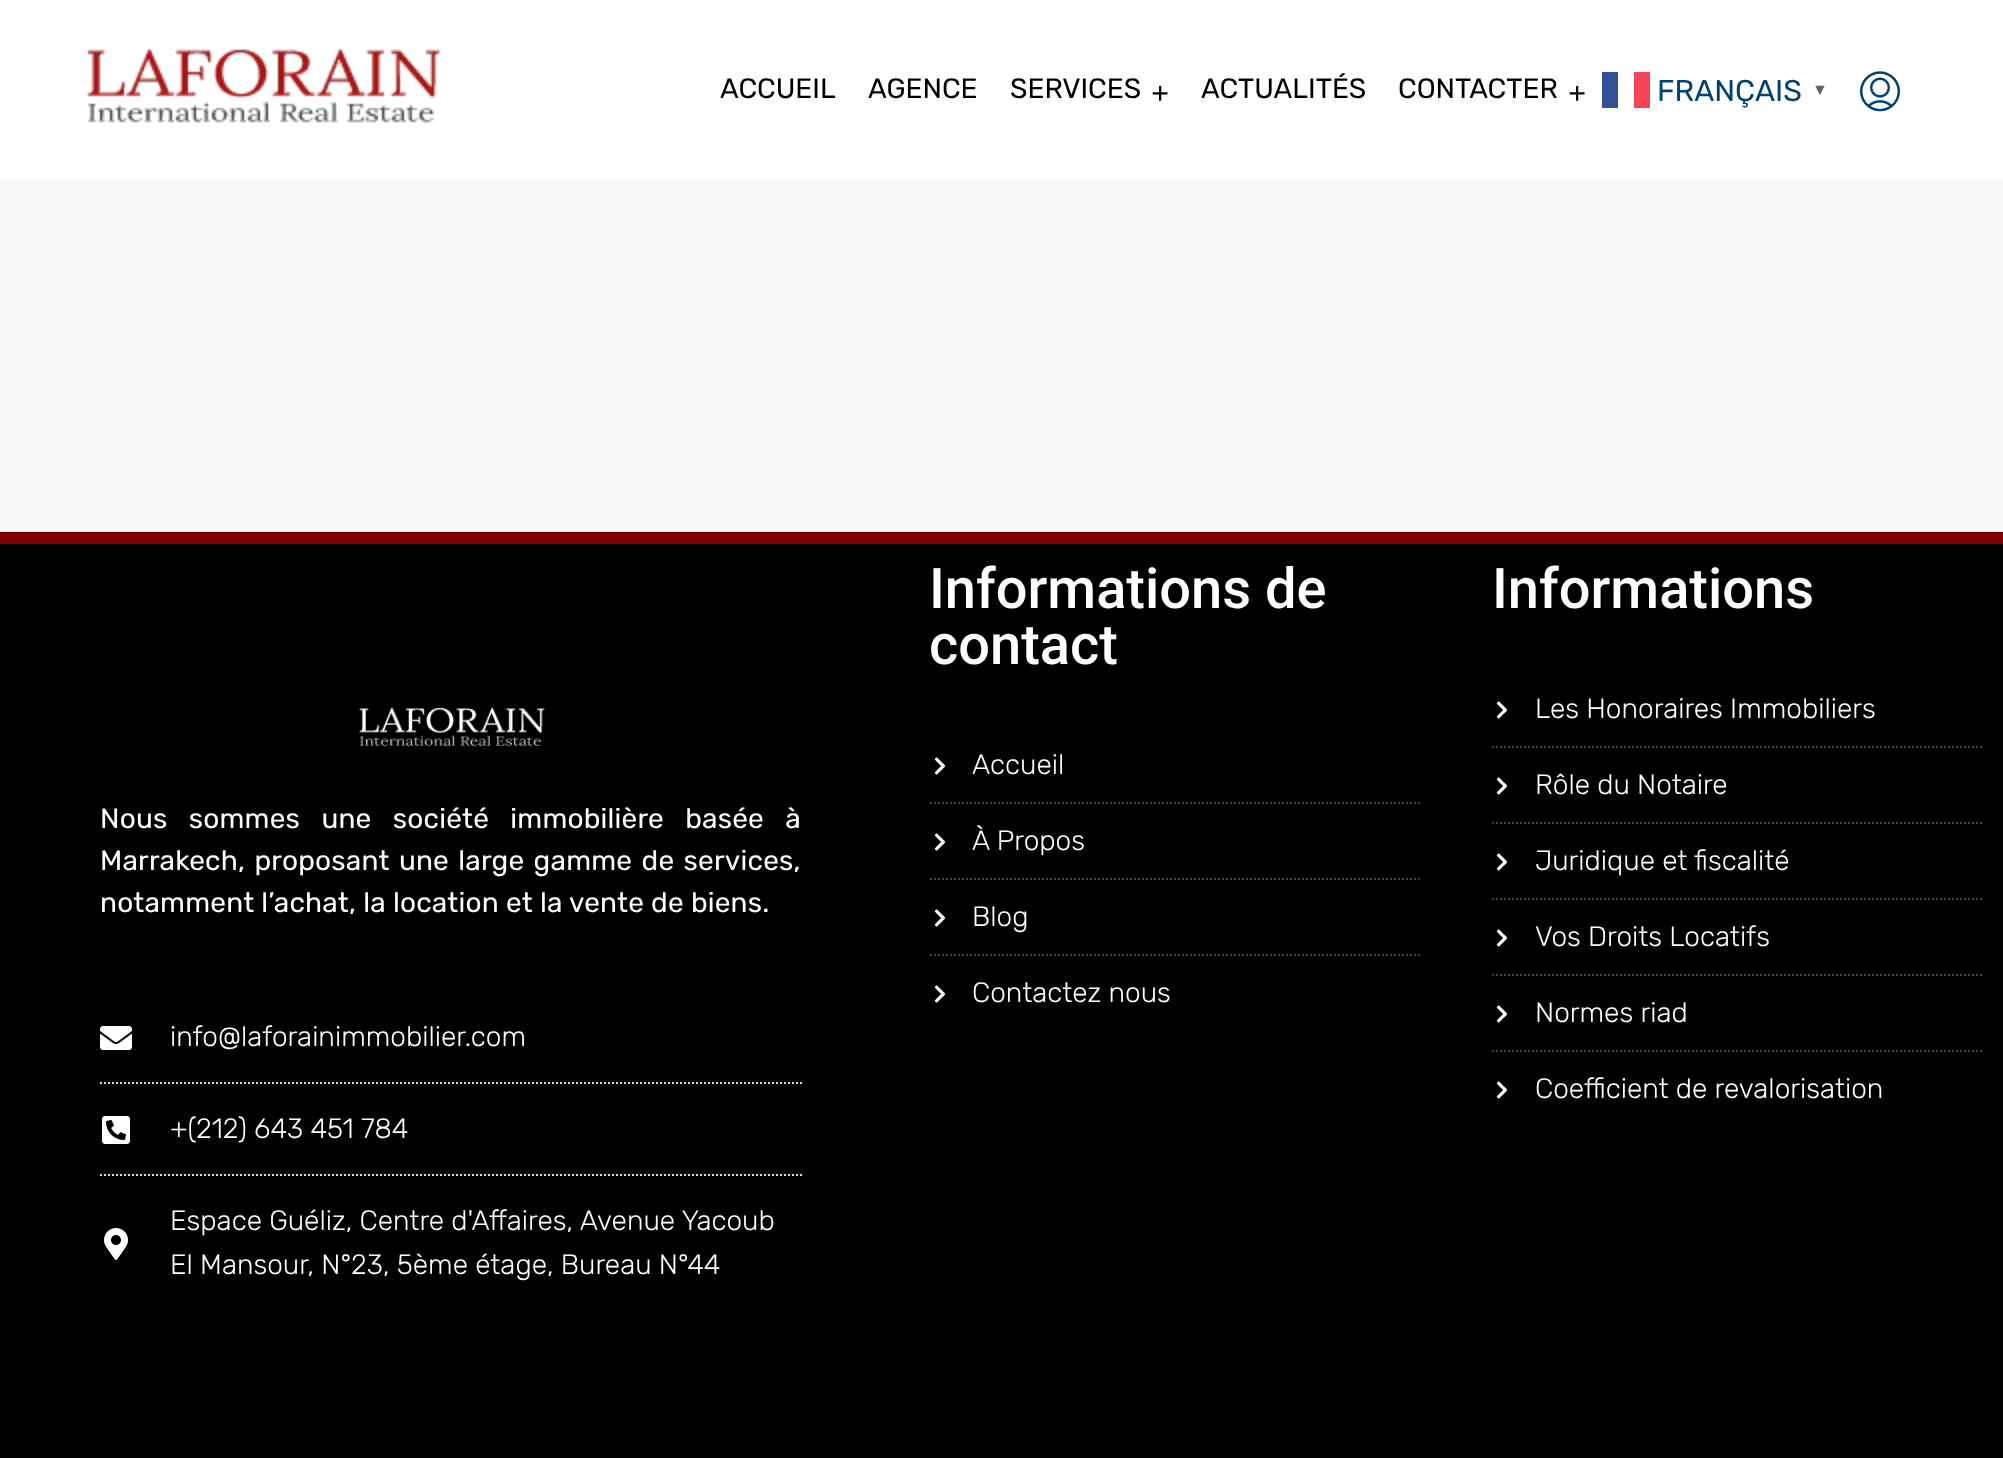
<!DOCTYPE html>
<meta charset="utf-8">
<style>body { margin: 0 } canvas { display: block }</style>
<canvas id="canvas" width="2003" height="1458"></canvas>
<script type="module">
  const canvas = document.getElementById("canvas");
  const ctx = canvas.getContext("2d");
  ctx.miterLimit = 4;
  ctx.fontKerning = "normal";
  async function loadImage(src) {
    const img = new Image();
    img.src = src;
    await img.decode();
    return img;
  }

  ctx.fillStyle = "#f8f8f8";
  ctx.fillRect(0, 0, 2003, 1458);
  ctx.fillStyle = "#ffffff";
  ctx.fillRect(0, 0, 2003, 180);
  ctx.drawImage(await loadImage("img1.png"), 87, 47, 354, 76);
  ctx.font = "28px Rubik";
  ctx.fillStyle = "#000000";
  ctx.fillText("ACCUEIL", 720, 98);
  ctx.fillText("AGENCE", 868, 98);
  ctx.fillText("SERVICES", 1010, 98);
  ctx.font = "bold 32px Liberation Serif";
  ctx.fillText("+", 1151, 104);
  ctx.font = "28px Rubik";
  ctx.fillText("ACTUALITÉS", 1201, 98);
  ctx.fillText("CONTACTER", 1398, 98);
  ctx.font = "bold 32px Liberation Serif";
  ctx.fillText("+", 1568, 104);
  ctx.font = "30px Rubik";
  ctx.fillStyle = "#004274";
  ctx.fillText("FRANÇAIS", 1657, 101);
  ctx.fillStyle = "#335199";
  ctx.fillRect(1602, 72, 16, 36);
  ctx.fillStyle = "#f54659";
  ctx.fillRect(1634, 72, 16, 36);
  ctx.font = "bold 16px Liberation Serif";
  ctx.fillStyle = "#666666";
  ctx.fillText("▼", 1812, 95);
  ctx.drawImage(await loadImage("img2.png"), 1860, 71, 40, 41);
  ctx.fillStyle = "#000000";
  ctx.fillRect(0, 544, 2003, 914);
  ctx.fillStyle = "#800000";
  ctx.fillRect(0, 532, 2003, 12);
  ctx.drawImage(await loadImage("img3.png"), 359, 707, 186, 39);
  ctx.letterSpacing = "0.2px";
  ctx.wordSpacing = "14.25px";
  ctx.font = "28px Rubik";
  ctx.fillStyle = "#ffffff";
  ctx.fillText("Nous sommes une société immobilière basée à", 100, 828);
  ctx.wordSpacing = "2.25px";
  ctx.fillText("Marrakech, proposant une large gamme de services,", 100, 870);
  ctx.wordSpacing = "0px";
  ctx.fillText("notamment l’achat, la location et la vente de biens.", 100, 912);
  ctx.drawImage(await loadImage("img4.png"), 100, 1026, 32, 24);
  ctx.letterSpacing = "0px";
  ctx.font = "300 28px Rubik";
  ctx.fillText("info@laforainimmobilier.com", 170, 1046);
  ctx.beginPath();
  ctx.moveTo(100, 1083);
  ctx.lineTo(802, 1083);
  ctx.strokeStyle = "#dddddd";
  ctx.lineWidth = 2;
  ctx.setLineDash([2, 2]);
  ctx.stroke();
  ctx.drawImage(await loadImage("img5.png"), 102, 1116, 28, 28);
  ctx.fillText("+(212) 643 451 784", 170, 1138);
  ctx.beginPath();
  ctx.moveTo(100, 1175);
  ctx.lineTo(802, 1175);
  ctx.stroke();
  ctx.drawImage(await loadImage("img6.png"), 104, 1228, 24, 32);
  ctx.fillText("Espace Guéliz, Centre d'Affaires, Avenue Yacoub", 170, 1230);
  ctx.fillText("El Mansour, N°23, 5ème étage, Bureau N°44", 170, 1274);
  ctx.font = "500 56px Roboto";
  ctx.fillText("Informations de", 929, 608);
  ctx.fillText("contact", 929, 664);
  ctx.drawImage(await loadImage("img7.png"), 934, 757, 12, 18);
  ctx.font = "300 28px Rubik";
  ctx.fillText("Accueil", 972, 774);
  ctx.beginPath();
  ctx.moveTo(930, 803);
  ctx.lineTo(1422, 803);
  ctx.strokeStyle = "#424242";
  ctx.stroke();
  ctx.drawImage(await loadImage("img7.png"), 934, 833, 12, 18);
  ctx.fillText("À Propos", 972, 850);
  ctx.beginPath();
  ctx.moveTo(930, 879);
  ctx.lineTo(1422, 879);
  ctx.stroke();
  ctx.drawImage(await loadImage("img7.png"), 934, 909, 12, 18);
  ctx.fillText("Blog", 972, 926);
  ctx.beginPath();
  ctx.moveTo(930, 955);
  ctx.lineTo(1422, 955);
  ctx.stroke();
  ctx.drawImage(await loadImage("img7.png"), 934, 985, 12, 18);
  ctx.fillText("Contactez nous", 972, 1002);
  ctx.font = "500 56px Roboto";
  ctx.fillText("Informations", 1492, 608);
  ctx.drawImage(await loadImage("img7.png"), 1496, 701, 12, 18);
  ctx.font = "300 28px Rubik";
  ctx.fillText("Les Honoraires Immobiliers", 1535, 718);
  ctx.beginPath();
  ctx.moveTo(1492, 747);
  ctx.lineTo(1984, 747);
  ctx.stroke();
  ctx.drawImage(await loadImage("img7.png"), 1496, 777, 12, 18);
  ctx.fillText("Rôle du Notaire", 1535, 794);
  ctx.beginPath();
  ctx.moveTo(1492, 823);
  ctx.lineTo(1984, 823);
  ctx.stroke();
  ctx.drawImage(await loadImage("img7.png"), 1496, 853, 12, 18);
  ctx.fillText("Juridique et fiscalité", 1535, 870);
  ctx.beginPath();
  ctx.moveTo(1492, 899);
  ctx.lineTo(1984, 899);
  ctx.stroke();
  ctx.drawImage(await loadImage("img7.png"), 1496, 929, 12, 18);
  ctx.fillText("Vos Droits Locatifs", 1535, 946);
  ctx.beginPath();
  ctx.moveTo(1492, 975);
  ctx.lineTo(1984, 975);
  ctx.stroke();
  ctx.drawImage(await loadImage("img7.png"), 1496, 1005, 12, 18);
  ctx.fillText("Normes riad", 1535, 1022);
  ctx.beginPath();
  ctx.moveTo(1492, 1051);
  ctx.lineTo(1984, 1051);
  ctx.stroke();
  ctx.drawImage(await loadImage("img7.png"), 1496, 1081, 12, 18);
  ctx.fillText("Coefficient de revalorisation", 1535, 1098);
</script>
